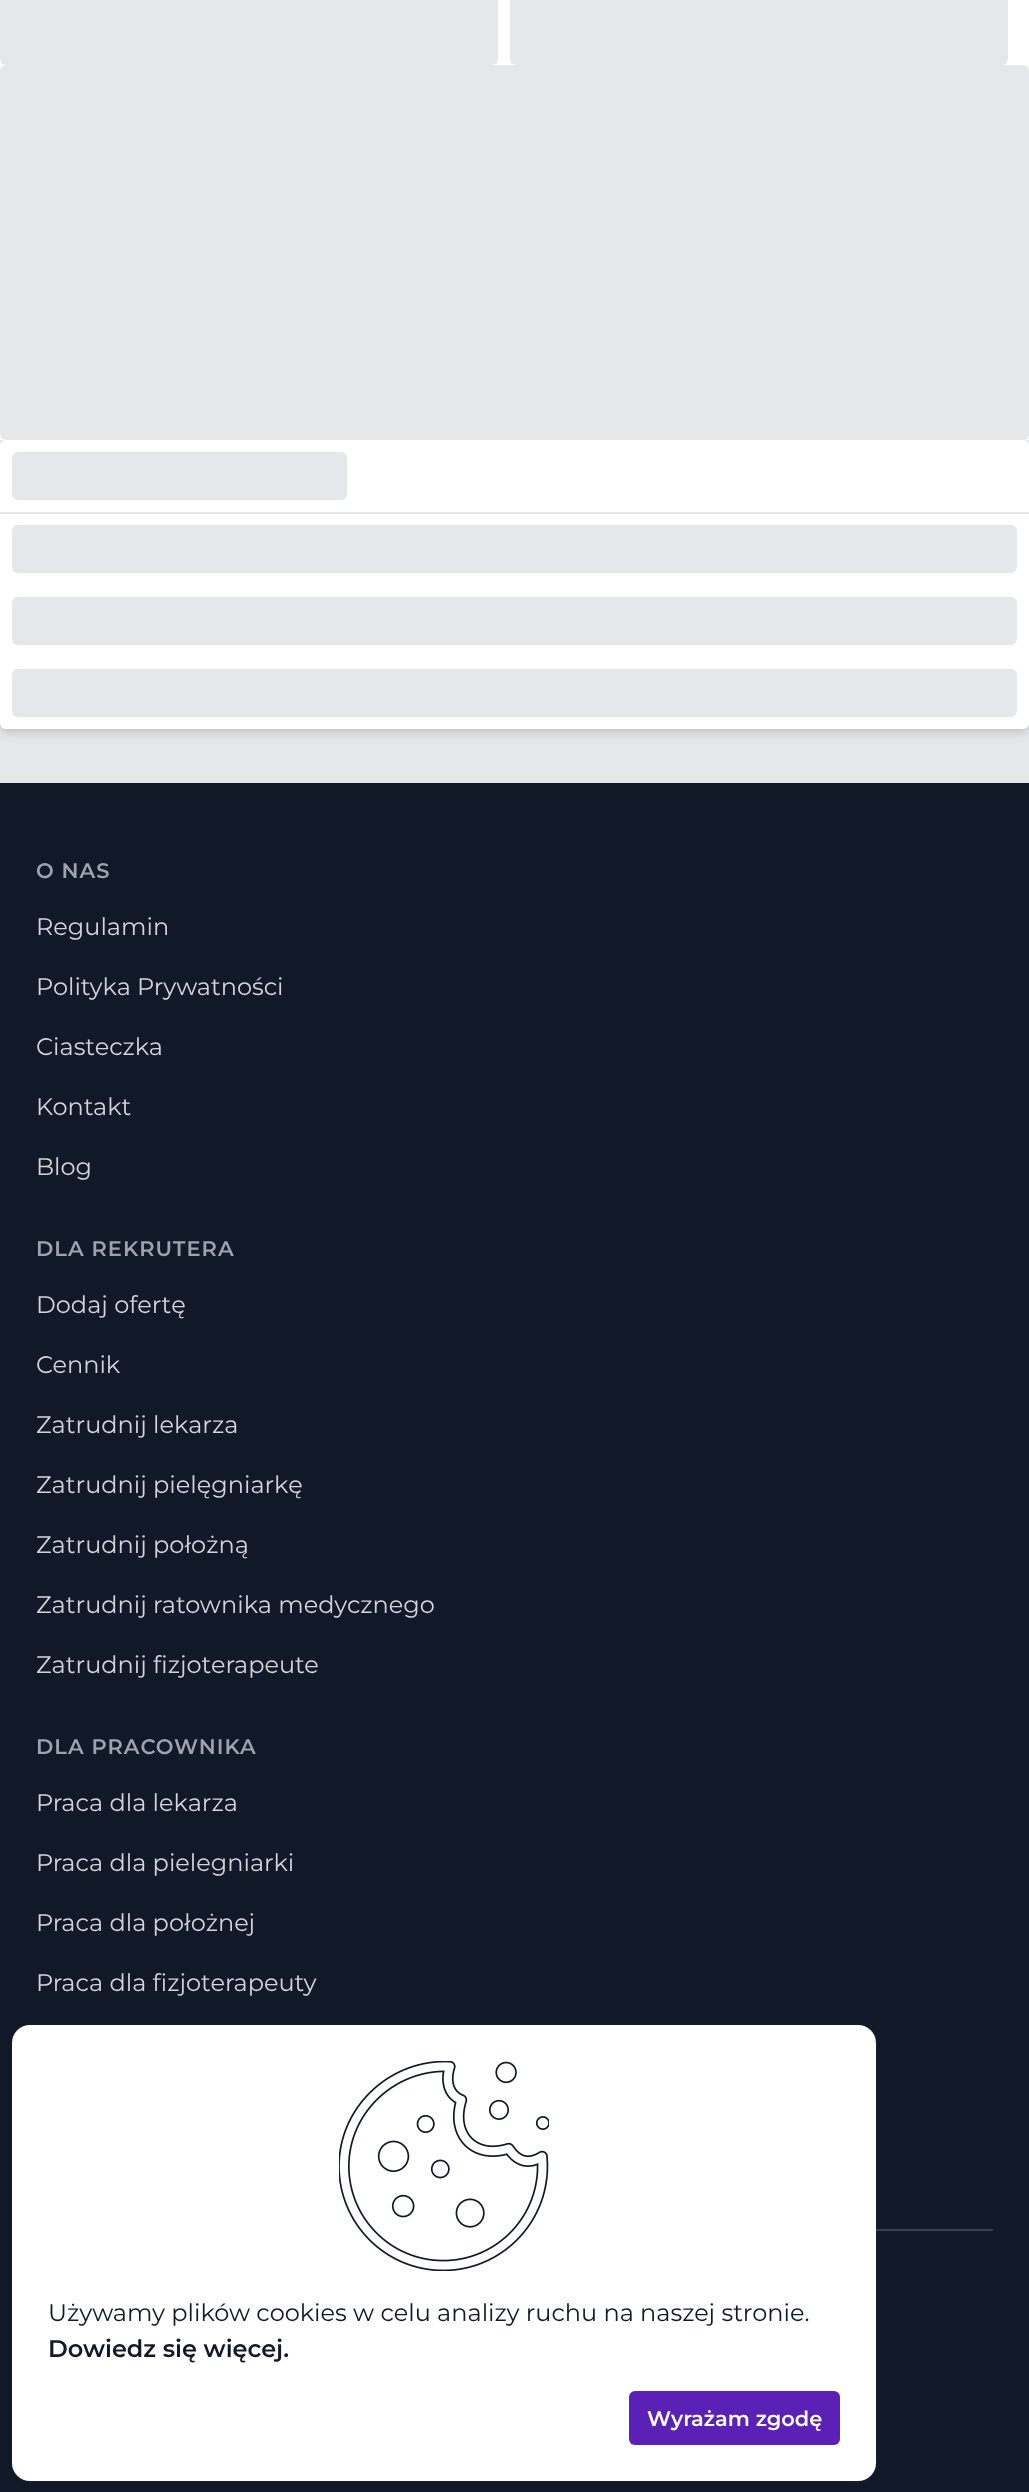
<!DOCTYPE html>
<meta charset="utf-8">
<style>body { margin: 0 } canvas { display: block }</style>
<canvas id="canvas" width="1029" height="2492"></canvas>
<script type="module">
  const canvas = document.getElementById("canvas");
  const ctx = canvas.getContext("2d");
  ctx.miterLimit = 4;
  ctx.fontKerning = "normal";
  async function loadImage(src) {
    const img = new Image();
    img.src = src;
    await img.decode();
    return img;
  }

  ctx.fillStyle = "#e5e7eb";
  ctx.fillRect(0, 0, 1029, 2492);
  ctx.fillStyle = "#ffffff";
  ctx.fillRect(0, 0, 1029, 440);
  ctx.fillStyle = "#e5e7eb";
  ctx.beginPath();
  ctx.roundRect(0, -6, 498, 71, 6);
  ctx.fill();
  ctx.beginPath();
  ctx.roundRect(510, -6, 498, 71, 6);
  ctx.fill();
  ctx.beginPath();
  ctx.roundRect(0, 65, 1029, 375, 6);
  ctx.fill();
  ctx.fillStyle = "rgba(0, 0, 0, 0.1)";
  ctx.filter = "blur(3px)";
  ctx.beginPath();
  ctx.roundRect(3, 446, 1023, 283, 3);
  ctx.fill();
  ctx.filter = "none";
  ctx.filter = "blur(4.5px)";
  ctx.beginPath();
  ctx.roundRect(2, 447, 1026, 287, 5);
  ctx.fill();
  ctx.filter = "none";
  ctx.fillStyle = "#ffffff";
  ctx.beginPath();
  ctx.roundRect(0, 440, 1029, 289, 6);
  ctx.fill();
  ctx.fillStyle = "#e5e7eb";
  ctx.fillRect(0, 512, 1029, 2);
  ctx.beginPath();
  ctx.roundRect(12, 452, 335, 48, 6);
  ctx.fill();
  ctx.beginPath();
  ctx.roundRect(12, 525, 1005, 48, 6);
  ctx.fill();
  ctx.beginPath();
  ctx.roundRect(12, 597, 1005, 48, 6);
  ctx.fill();
  ctx.beginPath();
  ctx.roundRect(12, 669, 1005, 48, 6);
  ctx.fill();
  ctx.fillStyle = "#111827";
  ctx.fillRect(0, 783, 1029, 1709);
  ctx.letterSpacing = "1px";
  ctx.font = "600 21px Montserrat";
  ctx.fillStyle = "#9ca3af";
  ctx.fillText("O NAS", 36, 878);
  ctx.letterSpacing = "0px";
  ctx.font = "24px Montserrat";
  ctx.fillStyle = "#d1d5db";
  ctx.fillText("Regulamin", 36, 935);
  ctx.fillText("Polityka Prywatności", 36, 995);
  ctx.fillText("Ciasteczka", 36, 1055);
  ctx.fillText("Kontakt", 36, 1115);
  ctx.fillText("Blog", 36, 1175);
  ctx.letterSpacing = "1px";
  ctx.font = "600 21px Montserrat";
  ctx.fillStyle = "#9ca3af";
  ctx.fillText("DLA REKRUTERA", 36, 1256);
  ctx.letterSpacing = "0px";
  ctx.font = "24px Montserrat";
  ctx.fillStyle = "#d1d5db";
  ctx.fillText("Dodaj ofertę", 36, 1313);
  ctx.fillText("Cennik", 36, 1373);
  ctx.fillText("Zatrudnij lekarza", 36, 1433);
  ctx.fillText("Zatrudnij pielęgniarkę", 36, 1493);
  ctx.fillText("Zatrudnij położną", 36, 1553);
  ctx.fillText("Zatrudnij ratownika medycznego", 36, 1613);
  ctx.fillText("Zatrudnij fizjoterapeute", 36, 1673);
  ctx.letterSpacing = "1px";
  ctx.font = "600 21px Montserrat";
  ctx.fillStyle = "#9ca3af";
  ctx.fillText("DLA PRACOWNIKA", 36, 1754);
  ctx.letterSpacing = "0px";
  ctx.font = "24px Montserrat";
  ctx.fillStyle = "#d1d5db";
  ctx.fillText("Praca dla lekarza", 36, 1811);
  ctx.fillText("Praca dla pielegniarki", 36, 1871);
  ctx.fillText("Praca dla położnej", 36, 1931);
  ctx.fillText("Praca dla fizjoterapeuty", 36, 1991);
  ctx.fillStyle = "#374151";
  ctx.fillRect(876, 2229, 117, 2);
  ctx.beginPath();
  ctx.roundRect(12, 2025, 865, 457, 19);
  ctx.strokeStyle = "rgba(76, 29, 149, 0.1)";
  ctx.lineWidth = 2;
  ctx.stroke();
  ctx.fillStyle = "#ffffff";
  ctx.beginPath();
  ctx.roundRect(12, 2025, 864, 456, 18);
  ctx.fill();
  ctx.drawImage(await loadImage("img1.png"), 339, 2061, 210, 210);
  ctx.fillStyle = "#111827";
  ctx.fillText("Używamy plików cookies w celu analizy ruchu na naszej stronie.", 48, 2321);
  ctx.font = "600 24px Montserrat";
  ctx.fillText("Dowiedz się więcej.", 48, 2357);
  ctx.fillStyle = "#5b21b6";
  ctx.beginPath();
  ctx.roundRect(629, 2391, 211, 54, 6);
  ctx.fill();
  ctx.font = "600 21px Montserrat";
  ctx.fillStyle = "#ffffff";
  ctx.fillText("Wyrażam zgodę", 647, 2426);
</script>
